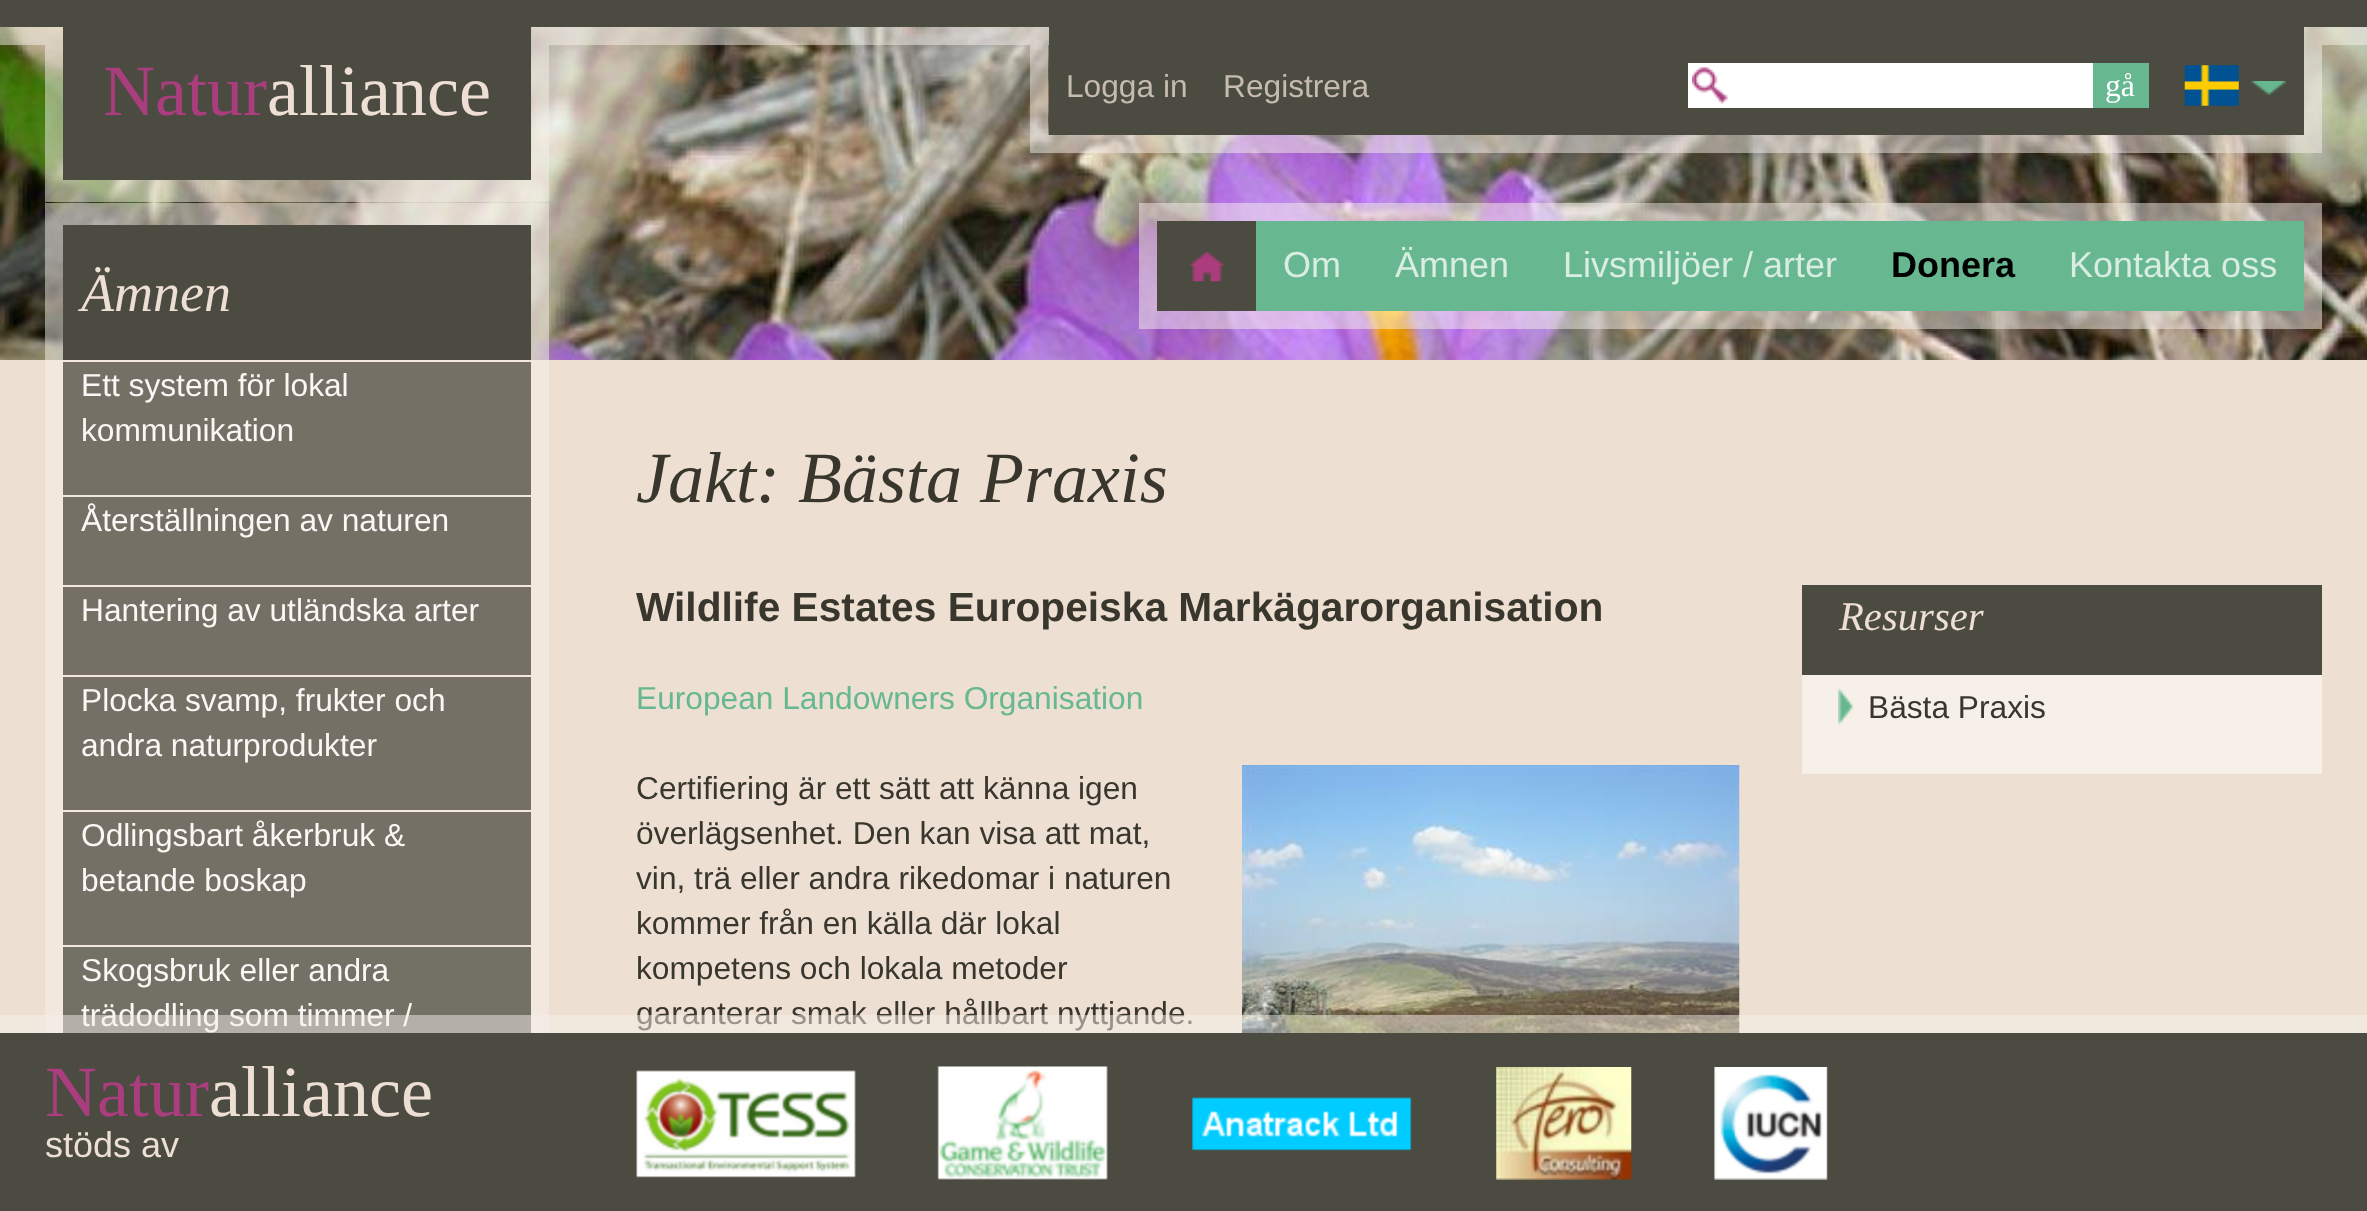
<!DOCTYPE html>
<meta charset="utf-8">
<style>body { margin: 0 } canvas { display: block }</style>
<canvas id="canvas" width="2367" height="1211"></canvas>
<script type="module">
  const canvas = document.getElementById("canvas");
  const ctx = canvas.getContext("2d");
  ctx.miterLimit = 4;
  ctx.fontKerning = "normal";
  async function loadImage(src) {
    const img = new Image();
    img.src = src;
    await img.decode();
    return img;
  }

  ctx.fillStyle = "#ffffff";
  ctx.fillRect(0, 0, 2367, 1211);
  ctx.drawImage(await loadImage("img1.png"), 0, 27, 2367, 333);
  ctx.fillStyle = "#4b4b41";
  ctx.fillRect(0, 0, 2367, 27);
  ctx.fillStyle = "rgba(246, 240, 233, 0.5)";
  ctx.fillRect(0, 27, 2367, 18);
  ctx.fillStyle = "#4b4b41";
  ctx.fillRect(63, 27, 468, 153);
  ctx.fillRect(1049, 27, 1255, 108);
  ctx.fillStyle = "rgba(246, 240, 233, 0.5)";
  ctx.beginPath();
  ctx.moveTo(549, 45);
  ctx.lineTo(549, 202);
  ctx.lineTo(531, 180);
  ctx.lineTo(531, 45);
  ctx.closePath();
  ctx.fill();
  ctx.beginPath();
  ctx.moveTo(549, 202);
  ctx.lineTo(45, 202);
  ctx.lineTo(63, 180);
  ctx.lineTo(531, 180);
  ctx.closePath();
  ctx.fill();
  ctx.beginPath();
  ctx.moveTo(45, 202);
  ctx.lineTo(45, 45);
  ctx.lineTo(63, 45);
  ctx.lineTo(63, 180);
  ctx.closePath();
  ctx.fill();
  ctx.font = "72px Liberation Serif";
  ctx.fillStyle = "#aa3d7e";
  ctx.fillText("Natur", 103, 115);
  ctx.fillStyle = "#eddfd4";
  ctx.fillText("alliance", 267, 115);
  ctx.fillStyle = "rgba(246, 240, 233, 0.5)";
  ctx.beginPath();
  ctx.moveTo(2322, 45);
  ctx.lineTo(2322, 153);
  ctx.lineTo(2304, 135);
  ctx.lineTo(2304, 45);
  ctx.closePath();
  ctx.fill();
  ctx.beginPath();
  ctx.moveTo(2322, 153);
  ctx.lineTo(1030, 153);
  ctx.lineTo(1048, 135);
  ctx.lineTo(2304, 135);
  ctx.closePath();
  ctx.fill();
  ctx.beginPath();
  ctx.moveTo(1030, 153);
  ctx.lineTo(1030, 45);
  ctx.lineTo(1048, 45);
  ctx.lineTo(1048, 135);
  ctx.closePath();
  ctx.fill();
  ctx.font = "31.7px Liberation Sans";
  ctx.fillStyle = "#c5bbae";
  ctx.fillText("Logga in", 1066, 97);
  ctx.fillText("Registrera", 1223, 97);
  ctx.fillStyle = "#ffffff";
  ctx.fillRect(1688, 63, 405, 45);
  ctx.drawImage(await loadImage("img2.png"), 1692, 67, 36, 37);
  ctx.fillStyle = "#67b890";
  ctx.fillRect(2093, 63, 56, 45);
  ctx.font = "31.7px Liberation Serif";
  ctx.fillStyle = "#ffffff";
  ctx.fillText("gå", 2105, 96);
  ctx.drawImage(await loadImage("img3.png"), 2184, 65, 55, 41);
  ctx.drawImage(await loadImage("img4.png"), 2251, 81, 35, 14);
  ctx.fillStyle = "#4b4b41";
  ctx.fillRect(63, 225, 468, 135);
  ctx.save();
  ctx.beginPath();
  ctx.rect(45, 203, 2277, 157);
  ctx.clip();
  ctx.fillStyle = "rgba(246, 240, 233, 0.5)";
  ctx.beginPath();
  ctx.moveTo(45, 202);
  ctx.lineTo(549, 202);
  ctx.lineTo(531, 225);
  ctx.lineTo(63, 225);
  ctx.closePath();
  ctx.fill();
  ctx.restore();
  ctx.fillStyle = "rgba(246, 240, 233, 0.5)";
  ctx.beginPath();
  ctx.moveTo(549, 202);
  ctx.lineTo(549, 360);
  ctx.lineTo(531, 360);
  ctx.lineTo(531, 225);
  ctx.closePath();
  ctx.fill();
  ctx.beginPath();
  ctx.moveTo(45, 360);
  ctx.lineTo(45, 202);
  ctx.lineTo(63, 225);
  ctx.lineTo(63, 360);
  ctx.closePath();
  ctx.fill();
  ctx.font = "italic 54px Liberation Serif";
  ctx.fillStyle = "#eddfd4";
  ctx.fillText("Ämnen", 81, 311);
  ctx.strokeStyle = "rgba(246, 240, 233, 0.5)";
  ctx.lineWidth = 18;
  ctx.strokeRect(1148, 212, 1165, 108);
  ctx.fillStyle = "#4b4b41";
  ctx.fillRect(1157, 221, 99, 90);
  ctx.drawImage(await loadImage("img5.png"), 1189, 252, 35, 30);
  ctx.fillStyle = "#67b890";
  ctx.fillRect(1256, 221, 1048, 90);
  ctx.font = "36px Liberation Sans";
  ctx.fillStyle = "#d9ede3";
  ctx.fillText("Om", 1283, 277);
  ctx.fillText("Ämnen", 1395, 277);
  ctx.fillText("Livsmiljöer / arter", 1563, 277);
  ctx.font = "bold 36px Liberation Sans";
  ctx.fillStyle = "#000000";
  ctx.fillText("Donera", 1891, 277);
  ctx.font = "36px Liberation Sans";
  ctx.fillStyle = "#d9ede3";
  ctx.fillText("Kontakta oss", 2069, 277);
  ctx.fillStyle = "#ede0d2";
  ctx.fillRect(0, 360, 2367, 673);
  ctx.fillStyle = "#f2e8de";
  ctx.beginPath();
  ctx.moveTo(549, 360);
  ctx.lineTo(549, 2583);
  ctx.lineTo(531, 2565);
  ctx.lineTo(531, 360);
  ctx.closePath();
  ctx.fill();
  ctx.beginPath();
  ctx.moveTo(45, 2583);
  ctx.lineTo(45, 360);
  ctx.lineTo(63, 360);
  ctx.lineTo(63, 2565);
  ctx.closePath();
  ctx.fill();
  ctx.fillRect(63, 360, 468, 2);
  ctx.fillStyle = "#747065";
  ctx.fillRect(63, 362, 468, 133);
  ctx.font = "31.7px Liberation Sans";
  ctx.fillStyle = "#fbf7f4";
  ctx.fillText("Ett system för lokal", 81, 396);
  ctx.fillText("kommunikation", 81, 441);
  ctx.fillStyle = "#f2e8de";
  ctx.fillRect(63, 495, 468, 2);
  ctx.fillStyle = "#747065";
  ctx.fillRect(63, 497, 468, 88);
  ctx.fillStyle = "#fbf7f4";
  ctx.fillText("Återställningen av naturen", 81, 531);
  ctx.fillStyle = "#f2e8de";
  ctx.fillRect(63, 585, 468, 2);
  ctx.fillStyle = "#747065";
  ctx.fillRect(63, 587, 468, 88);
  ctx.fillStyle = "#fbf7f4";
  ctx.fillText("Hantering av utländska arter", 81, 621);
  ctx.fillStyle = "#f2e8de";
  ctx.fillRect(63, 675, 468, 2);
  ctx.fillStyle = "#747065";
  ctx.fillRect(63, 677, 468, 133);
  ctx.fillStyle = "#fbf7f4";
  ctx.fillText("Plocka svamp, frukter och", 81, 711);
  ctx.fillText("andra naturprodukter", 81, 756);
  ctx.fillStyle = "#f2e8de";
  ctx.fillRect(63, 810, 468, 2);
  ctx.fillStyle = "#747065";
  ctx.fillRect(63, 812, 468, 133);
  ctx.fillStyle = "#fbf7f4";
  ctx.fillText("Odlingsbart åkerbruk &", 81, 846);
  ctx.fillText("betande boskap", 81, 891);
  ctx.fillStyle = "#f2e8de";
  ctx.fillRect(63, 945, 468, 2);
  ctx.fillStyle = "#737065";
  ctx.fillRect(63, 947, 468, 86);
  ctx.fillStyle = "#fbf7f4";
  ctx.fillText("Skogsbruk eller andra", 81, 981);
  ctx.fillText("trädodling som timmer /", 81, 1026);
  ctx.font = "italic 72px Liberation Serif";
  ctx.fillStyle = "#39362d";
  ctx.fillText("Jakt: Bästa Praxis", 636, 502);
  ctx.font = "bold 40.7px Liberation Sans";
  ctx.fillText("Wildlife Estates Europeiska Markägarorganisation", 636, 621);
  ctx.font = "31.7px Liberation Sans";
  ctx.fillStyle = "#67b890";
  ctx.fillText("European Landowners Organisation", 636, 709);
  ctx.fillStyle = "#39362d";
  ctx.fillText("Certifiering är ett sätt att känna igen", 636, 799);
  ctx.fillText("överlägsenhet. Den kan visa att mat,", 636, 844);
  ctx.fillText("vin, trä eller andra rikedomar i naturen", 636, 889);
  ctx.fillText("kommer från en källa där lokal", 636, 934);
  ctx.fillText("kompetens och lokala metoder", 636, 979);
  ctx.fillText("garanterar smak eller hållbart nyttjande.", 636, 1024);
  ctx.drawImage(await loadImage("img6.png"), 1242, 765, 498, 268);
  ctx.fillStyle = "#4b4b41";
  ctx.fillRect(1802, 585, 520, 90);
  ctx.font = "italic 40.7px Liberation Serif";
  ctx.fillStyle = "#eddfd4";
  ctx.fillText("Resurser", 1839, 630);
  ctx.fillStyle = "#f6f0e9";
  ctx.fillRect(1802, 675, 520, 99);
  ctx.drawImage(await loadImage("img7.png"), 1838, 688, 16, 37);
  ctx.font = "31.7px Liberation Sans";
  ctx.fillStyle = "#39362d";
  ctx.fillText("Bästa Praxis", 1868, 718);
  ctx.fillStyle = "#4b4b41";
  ctx.fillRect(0, 1033, 2367, 178);
  ctx.fillStyle = "rgba(246, 240, 233, 0.5)";
  ctx.fillRect(0, 1015, 2367, 18);
  ctx.font = "72px Liberation Serif";
  ctx.fillStyle = "#aa3d7e";
  ctx.fillText("Natur", 45, 1116);
  ctx.fillStyle = "#eddfd4";
  ctx.fillText("alliance", 209, 1116);
  ctx.font = "36px Liberation Sans";
  ctx.fillText("stöds av", 45, 1157);
  ctx.drawImage(await loadImage("img8.png"), 636, 1070, 220, 108);
  ctx.drawImage(await loadImage("img9.png"), 937, 1066, 171, 114);
  ctx.drawImage(await loadImage("img10.png"), 1192, 1097, 220, 54);
  ctx.drawImage(await loadImage("img11.png"), 1496, 1067, 136, 113);
  ctx.drawImage(await loadImage("img12.png"), 1714, 1067, 114, 113);
</script>
